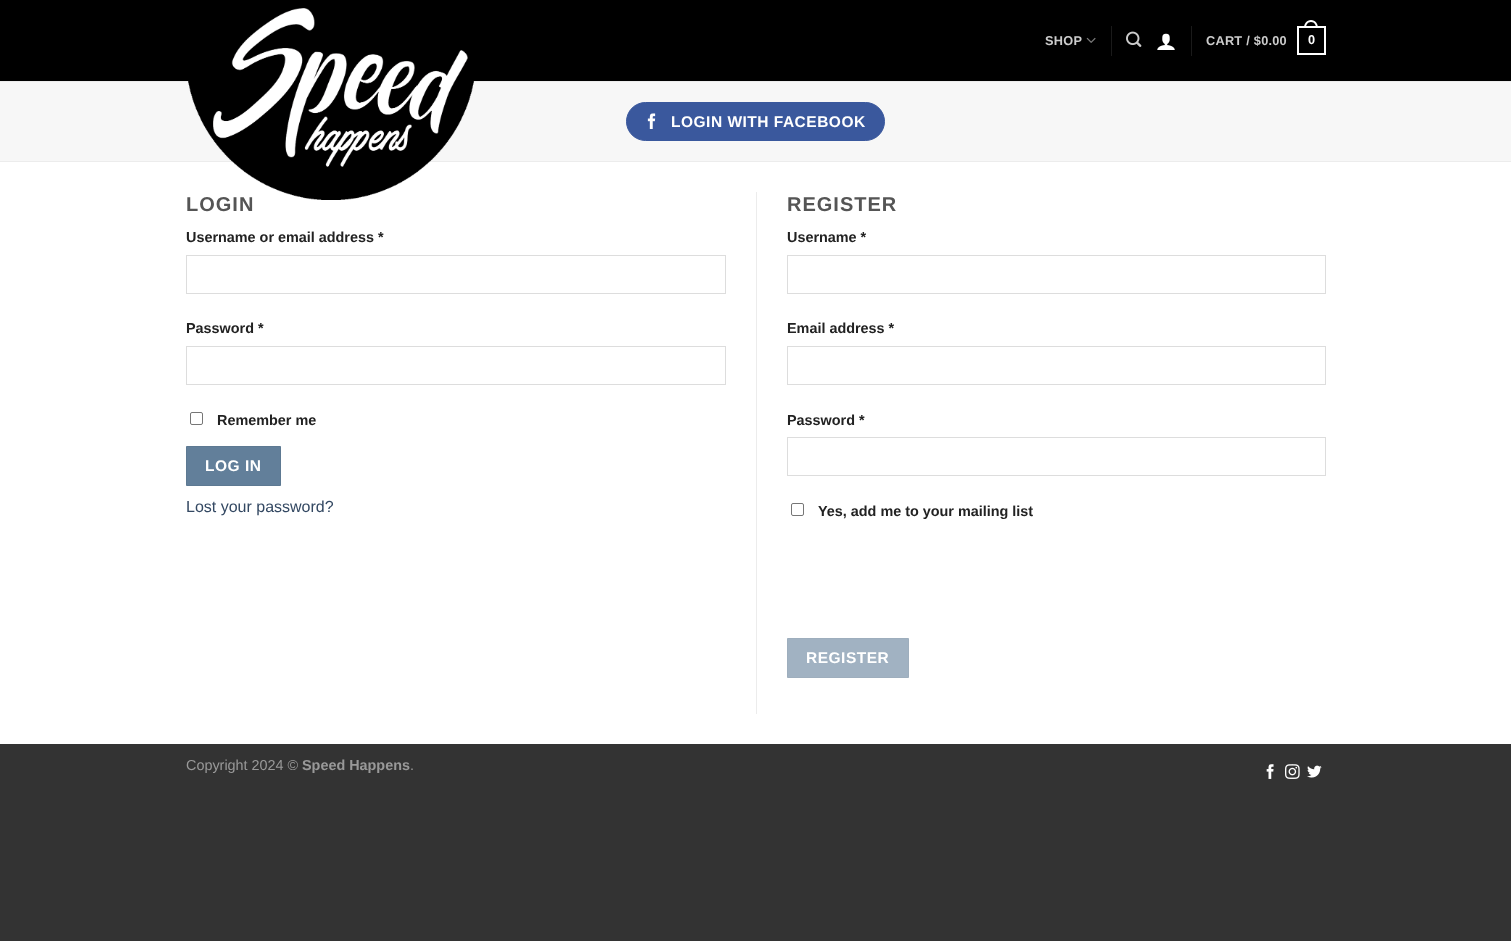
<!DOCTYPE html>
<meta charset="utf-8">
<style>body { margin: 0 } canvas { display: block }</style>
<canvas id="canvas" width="1511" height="941"></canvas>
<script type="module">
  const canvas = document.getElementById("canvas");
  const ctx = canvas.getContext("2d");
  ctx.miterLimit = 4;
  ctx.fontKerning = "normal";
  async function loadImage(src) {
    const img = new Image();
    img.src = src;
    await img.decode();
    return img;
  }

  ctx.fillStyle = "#333333";
  ctx.fillRect(0, 0, 1511, 941);
  ctx.fillStyle = "#ffffff";
  ctx.fillRect(0, 162, 1511, 582);
  ctx.fillStyle = "#000000";
  ctx.fillRect(0, 0, 1511, 81);
  ctx.fillStyle = "#f7f7f7";
  ctx.fillRect(0, 82, 1511, 79);
  ctx.fillStyle = "#ececec";
  ctx.fillRect(0, 81, 1511, 1);
  ctx.fillRect(0, 161, 1511, 1);
  ctx.letterSpacing = "1px";
  ctx.font = "bold 20px Liberation Sans";
  ctx.fillStyle = "#555555";
  ctx.fillText("LOGIN", 186, 211);
  ctx.drawImage(await loadImage("img1.png"), 188, 8, 287, 192);
  ctx.letterSpacing = "0.25px";
  ctx.font = "bold 12.75px Liberation Sans";
  ctx.fillStyle = "#cccccc";
  ctx.fillText("SHOP", 1045, 45);
  ctx.drawImage(await loadImage("img2.png"), 1086, 37, 10, 6);
  ctx.fillStyle = "#1a1a1a";
  ctx.fillRect(1111, 26, 1, 30);
  ctx.drawImage(await loadImage("img3.png"), 1126, 31, 16, 16);
  ctx.drawImage(await loadImage("img4.png"), 1157, 33, 18, 17);
  ctx.fillRect(1191, 26, 1, 30);
  ctx.fillStyle = "#cccccc";
  ctx.fillText("CART / $0.00", 1206, 45);
  ctx.strokeStyle = "#ffffff";
  ctx.lineWidth = 2;
  ctx.strokeRect(1298, 27, 27, 27);
  ctx.fillStyle = "#ffffff";
  ctx.beginPath();
  ctx.moveTo(1311, 20);
  ctx.bezierCurveTo(1315.5, 20, 1318, 24, 1318, 28);
  ctx.lineTo(1304, 28);
  ctx.bezierCurveTo(1304, 24, 1306.5, 20, 1311, 20);
  ctx.closePath();
  ctx.moveTo(1311, 22);
  ctx.bezierCurveTo(1314.5, 22, 1316, 25, 1316, 28);
  ctx.lineTo(1306, 28);
  ctx.bezierCurveTo(1306, 25, 1307.5, 22, 1311, 22);
  ctx.closePath();
  ctx.fill("evenodd");
  ctx.fillText("0", 1308, 44);
  ctx.fillStyle = "#3a589d";
  ctx.beginPath();
  ctx.roundRect(626.5, 102.5, 258, 38, 19);
  ctx.fill();
  ctx.strokeStyle = "#3a589d";
  ctx.lineWidth = 1;
  ctx.stroke();
  ctx.drawImage(await loadImage("img5.png"), 647, 113, 9, 16);
  ctx.letterSpacing = "0.5px";
  ctx.font = "bold 15.5px Liberation Sans";
  ctx.fillStyle = "#ffffff";
  ctx.fillText("LOGIN WITH FACEBOOK", 671, 127);
  ctx.letterSpacing = "0px";
  ctx.font = "bold 14.4px Liberation Sans";
  ctx.fillStyle = "#222222";
  ctx.fillText("Username or email address *", 186, 242);
  ctx.strokeStyle = "#dddddd";
  ctx.strokeRect(186.5, 255.5, 539, 38);
  ctx.fillText("Password *", 186, 333);
  ctx.strokeRect(186.5, 346.5, 539, 38);
  ctx.beginPath();
  ctx.roundRect(190.5, 412.5, 12, 12, 1.5);
  ctx.strokeStyle = "#767676";
  ctx.stroke();
  ctx.fillText("Remember me", 217, 425);
  ctx.fillStyle = "#627f9a";
  ctx.beginPath();
  ctx.rect(186.5, 446.5, 94, 39);
  ctx.fill();
  ctx.strokeStyle = "#5d7992";
  ctx.stroke();
  ctx.letterSpacing = "0.5px";
  ctx.font = "bold 15.5px Liberation Sans";
  ctx.fillStyle = "#ffffff";
  ctx.fillText("LOG IN", 205, 471);
  ctx.letterSpacing = "0px";
  ctx.font = "16px Liberation Sans";
  ctx.fillStyle = "#334862";
  ctx.fillText("Lost your password?", 186, 512);
  ctx.fillStyle = "#ececec";
  ctx.fillRect(756, 192, 1, 522);
  ctx.letterSpacing = "1px";
  ctx.font = "bold 20px Liberation Sans";
  ctx.fillStyle = "#555555";
  ctx.fillText("REGISTER", 787, 211);
  ctx.letterSpacing = "0px";
  ctx.font = "bold 14.4px Liberation Sans";
  ctx.fillStyle = "#222222";
  ctx.fillText("Username *", 787, 242);
  ctx.strokeStyle = "#dddddd";
  ctx.strokeRect(787.5, 255.5, 538, 38);
  ctx.fillText("Email address *", 787, 333);
  ctx.strokeRect(787.5, 346.5, 538, 38);
  ctx.fillText("Password *", 787, 425);
  ctx.strokeRect(787.5, 437.5, 538, 38);
  ctx.beginPath();
  ctx.roundRect(791.5, 503.5, 12, 12, 1.5);
  ctx.strokeStyle = "#767676";
  ctx.stroke();
  ctx.fillText("Yes, add me to your mailing list", 818, 516);
  ctx.fillStyle = "#a1b2c2";
  ctx.beginPath();
  ctx.rect(787.5, 638.5, 121, 39);
  ctx.fill();
  ctx.strokeStyle = "#9eaebd";
  ctx.stroke();
  ctx.letterSpacing = "0.5px";
  ctx.font = "bold 15.5px Liberation Sans";
  ctx.fillStyle = "#ffffff";
  ctx.fillText("REGISTER", 806, 663);
  ctx.letterSpacing = "0px";
  ctx.font = "14.4px Liberation Sans";
  ctx.fillStyle = "#999999";
  ctx.fillText("Copyright 2024 ©", 186, 770);
  ctx.font = "bold 14.4px Liberation Sans";
  ctx.fillText("Speed Happens", 302, 770);
  ctx.font = "14.4px Liberation Sans";
  ctx.fillText(".", 410, 770);
  ctx.drawImage(await loadImage("img6.png"), 1266, 764, 8, 15);
  ctx.drawImage(await loadImage("img7.png"), 1285, 764, 15, 15);
  ctx.drawImage(await loadImage("img8.png"), 1307, 765, 15, 13);
</script>
